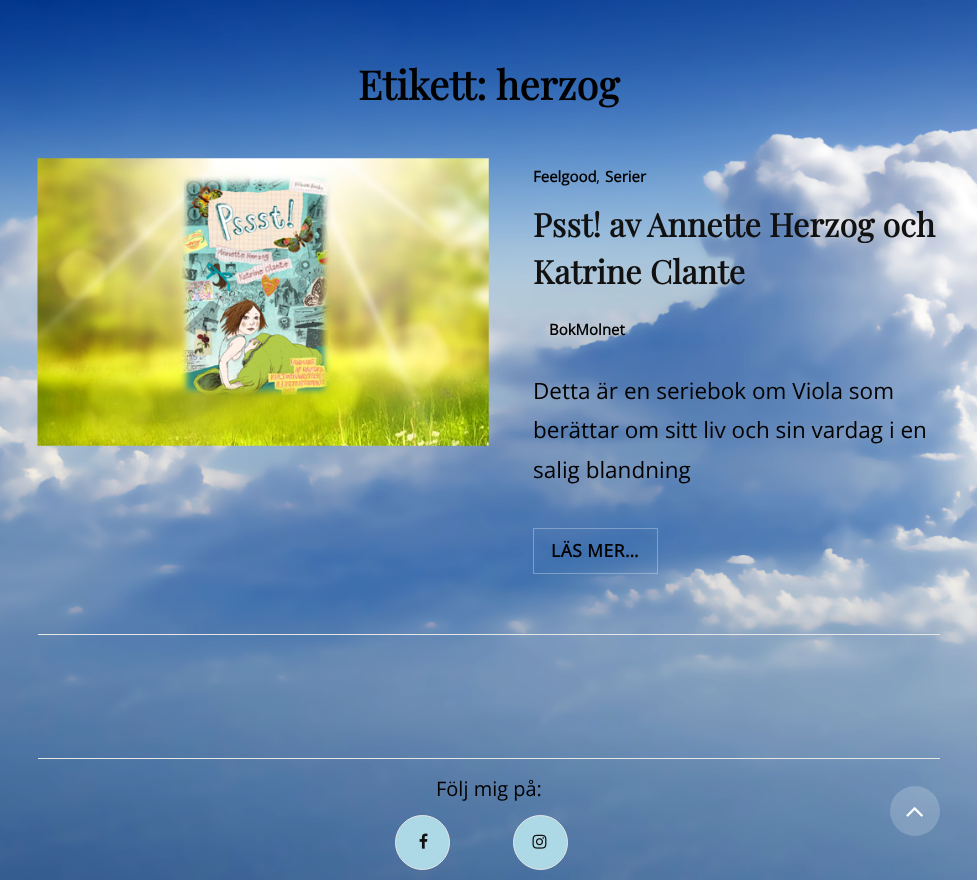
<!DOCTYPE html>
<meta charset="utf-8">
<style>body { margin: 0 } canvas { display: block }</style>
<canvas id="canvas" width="977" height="880"></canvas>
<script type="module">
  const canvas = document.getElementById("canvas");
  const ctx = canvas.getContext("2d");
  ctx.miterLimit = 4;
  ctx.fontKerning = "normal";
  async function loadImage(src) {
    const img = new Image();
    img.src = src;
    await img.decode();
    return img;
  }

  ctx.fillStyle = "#ffffff";
  ctx.fillRect(0, 0, 977, 880);
  ctx.drawImage(await loadImage("img1.png"), 0, 0, 977, 880);
  ctx.font = "bold 40px Playfair Display";
  ctx.fillStyle = "#000000";
  ctx.fillText("Etikett:", 358, 100);
  ctx.fillText("herzog", 496, 100);
  ctx.fillStyle = "#e6e6e6";
  ctx.fillRect(38, 634, 902, 1);
  ctx.drawImage(await loadImage("img2.png"), 37, 158, 452, 288);
  ctx.font = "bold 15px Open Sans";
  ctx.fillStyle = "#000000";
  ctx.fillText("Feelgood", 533, 182);
  ctx.font = "16px Open Sans";
  ctx.fillText(",", 596, 182);
  ctx.font = "bold 15px Open Sans";
  ctx.fillText("Serier", 605, 182);
  ctx.font = "bold 32.5px Playfair Display";
  ctx.fillStyle = "#111111";
  ctx.fillText("Psst! av Annette Herzog och", 533, 237);
  ctx.fillText("Katrine Clante", 533, 284);
  ctx.font = "bold 15px Open Sans";
  ctx.fillStyle = "#000000";
  ctx.fillText("BokMolnet", 549, 335);
  ctx.font = "22.5px Open Sans";
  ctx.fillText("Detta är en seriebok om Viola som", 533, 399);
  ctx.fillText("berättar om sitt liv och sin vardag i en", 533, 438);
  ctx.fillText("salig blandning", 533, 478);
  ctx.strokeStyle = "rgba(255, 255, 255, 0.3)";
  ctx.strokeRect(533.5, 528.5, 124, 45);
  ctx.letterSpacing = "0.5px";
  ctx.font = "bold 17.5px Open Sans";
  ctx.fillText("LÄS MER…", 551, 557);
  ctx.fillStyle = "#e6e6e6";
  ctx.fillRect(38, 758, 902, 1);
  ctx.letterSpacing = "0px";
  ctx.font = "20px Open Sans";
  ctx.fillStyle = "#000000";
  ctx.fillText("Följ mig på:", 436, 796);
  ctx.fillStyle = "#add8e6";
  ctx.beginPath();
  ctx.arc(422.5, 842.5, 27, 0, Math.PI * 2);
  ctx.fill();
  ctx.strokeStyle = "#e6e6e6";
  ctx.stroke();
  ctx.drawImage(await loadImage("img3.png"), 419, 833, 9, 16);
  ctx.beginPath();
  ctx.arc(540.5, 842.5, 27, 0, Math.PI * 2);
  ctx.fill();
  ctx.stroke();
  ctx.drawImage(await loadImage("img4.png"), 532, 834, 15, 15);
  ctx.fillStyle = "rgba(255, 255, 255, 0.19)";
  ctx.beginPath();
  ctx.arc(915, 811, 25, 0, Math.PI * 2);
  ctx.fill();
  ctx.drawImage(await loadImage("img5.png"), 906, 807, 17, 10);
</script>
